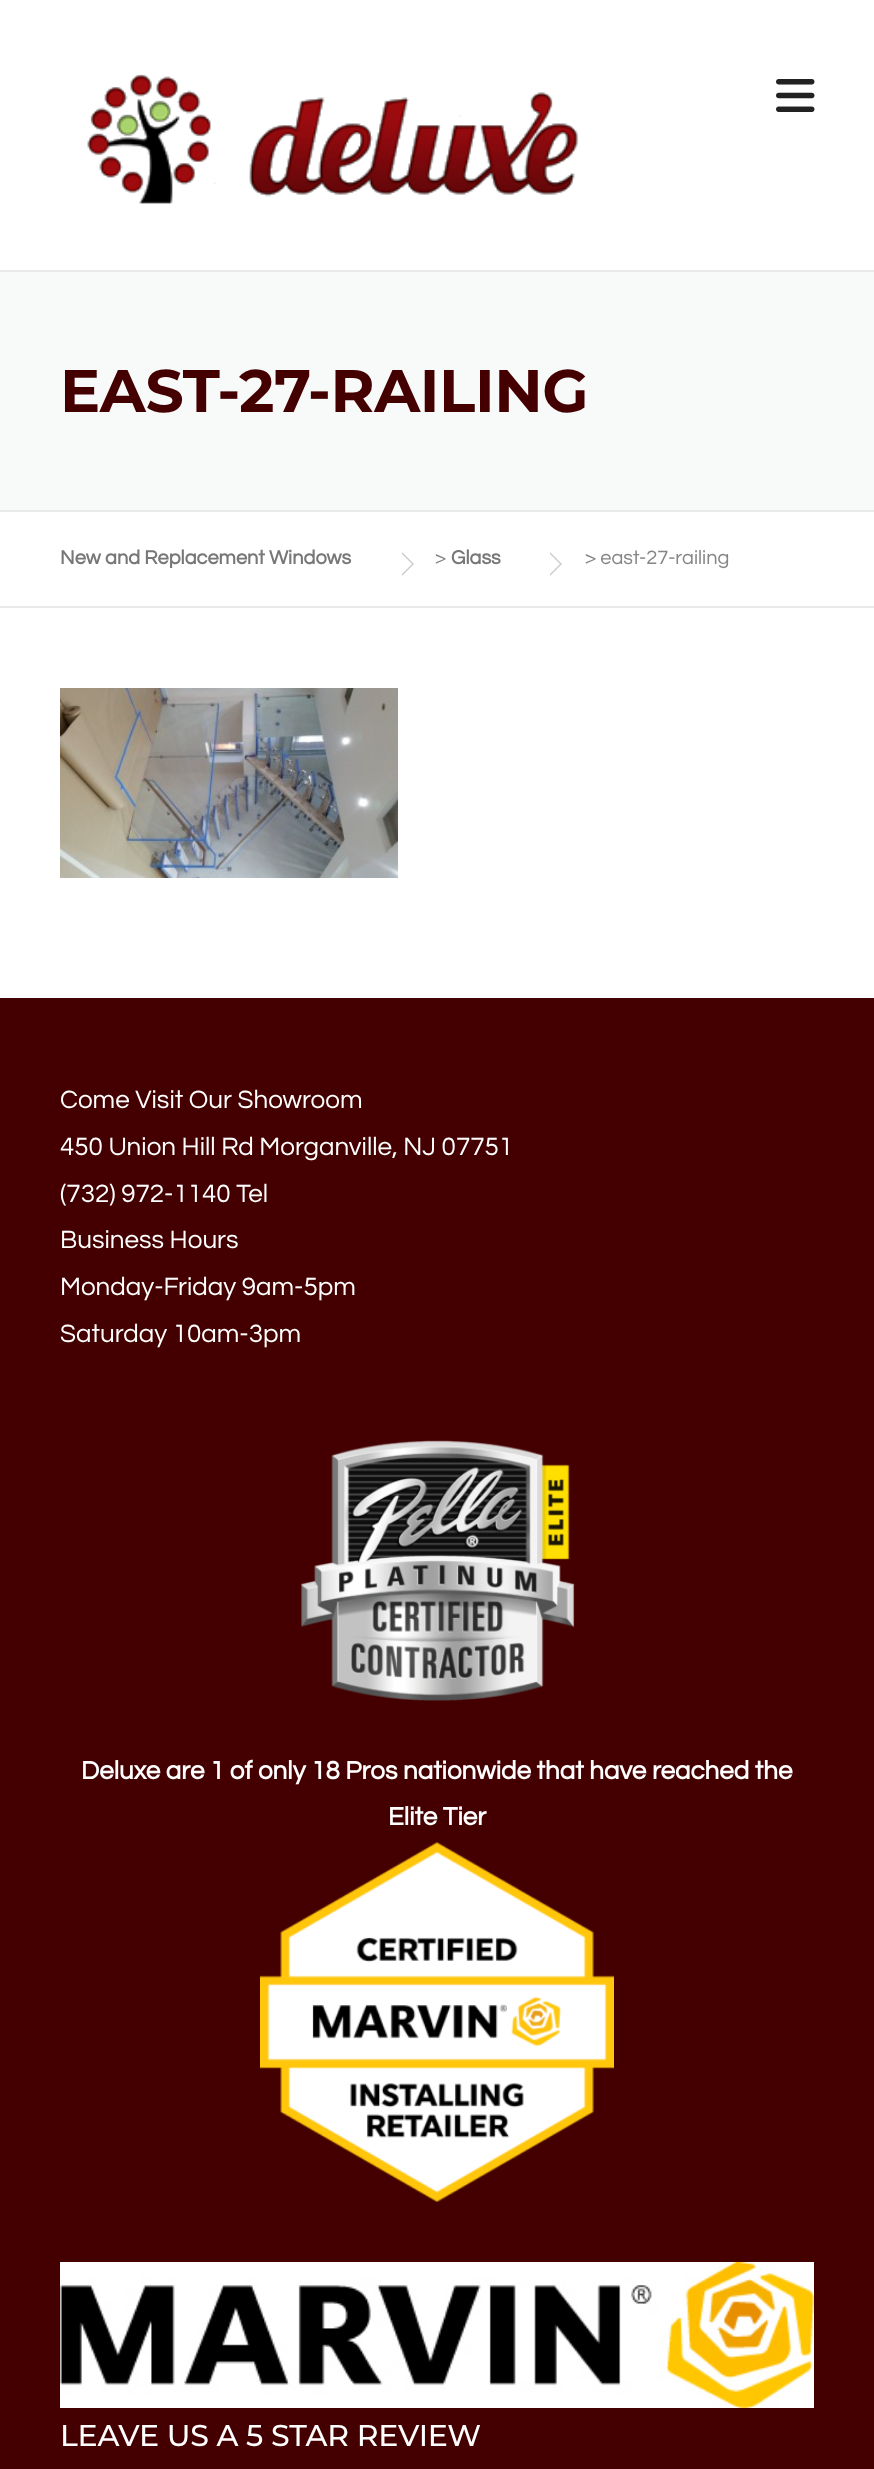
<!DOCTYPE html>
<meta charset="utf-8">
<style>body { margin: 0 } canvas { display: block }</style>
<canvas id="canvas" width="874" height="2469"></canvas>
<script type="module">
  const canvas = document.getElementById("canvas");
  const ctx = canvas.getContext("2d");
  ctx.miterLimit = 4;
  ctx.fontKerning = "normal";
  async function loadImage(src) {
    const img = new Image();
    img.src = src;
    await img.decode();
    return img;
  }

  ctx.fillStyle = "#ffffff";
  ctx.fillRect(0, 0, 874, 2469);
  ctx.drawImage(await loadImage("img1.png"), 87, 74, 492, 130);
  ctx.drawImage(await loadImage("img2.png"), 776, 79, 39, 33);
  ctx.fillStyle = "#f8f9f9";
  ctx.fillRect(0, 272, 874, 238);
  ctx.fillStyle = "#e9e9e9";
  ctx.fillRect(0, 270, 874, 2);
  ctx.fillRect(0, 510, 874, 2);
  ctx.letterSpacing = "-0.4px";
  ctx.font = "bold 60px Montserrat";
  ctx.fillStyle = "#440000";
  ctx.fillText("EAST-27-RAILING", 60, 412);
  ctx.fillStyle = "#e9e9e9";
  ctx.fillRect(0, 606, 874, 2);
  ctx.letterSpacing = "0px";
  ctx.font = "bold 20px Questrial";
  ctx.fillStyle = "#777777";
  ctx.fillText("New and Replacement Windows", 60, 564);
  ctx.fillStyle = "#cccccc";
  ctx.beginPath();
  ctx.moveTo(402, 576);
  ctx.lineTo(402, 552);
  ctx.lineTo(414, 564);
  ctx.closePath();
  ctx.fill();
  ctx.fillStyle = "#ffffff";
  ctx.beginPath();
  ctx.moveTo(402, 574);
  ctx.lineTo(402, 554);
  ctx.lineTo(412, 564);
  ctx.closePath();
  ctx.fill();
  ctx.font = "20px Questrial";
  ctx.fillStyle = "#858585";
  ctx.fillText(">", 435, 564);
  ctx.font = "bold 20px Questrial";
  ctx.fillStyle = "#777777";
  ctx.fillText("Glass", 451, 564);
  ctx.fillStyle = "#cccccc";
  ctx.beginPath();
  ctx.moveTo(550, 576);
  ctx.lineTo(550, 552);
  ctx.lineTo(562, 564);
  ctx.closePath();
  ctx.fill();
  ctx.fillStyle = "#ffffff";
  ctx.beginPath();
  ctx.moveTo(550, 574);
  ctx.lineTo(550, 554);
  ctx.lineTo(560, 564);
  ctx.closePath();
  ctx.fill();
  ctx.font = "20px Questrial";
  ctx.fillStyle = "#858585";
  ctx.fillText("> east-27-railing", 585, 564);
  ctx.drawImage(await loadImage("img3.png"), 60, 688, 338, 190);
  ctx.fillStyle = "#440000";
  ctx.fillRect(0, 998, 874, 1471);
  ctx.font = "26px Questrial";
  ctx.fillStyle = "#ffffff";
  ctx.fillText("Come Visit Our Showroom", 60, 1108);
  ctx.fillText("450 Union Hill Rd Morganville, NJ 07751", 60, 1155);
  ctx.fillText("(732) 972-1140 Tel", 60, 1202);
  ctx.fillText("Business Hours", 60, 1248);
  ctx.fillText("Monday-Friday 9am-5pm", 60, 1295);
  ctx.fillText("Saturday 10am-3pm", 60, 1342);
  ctx.drawImage(await loadImage("img4.png"), 301, 1440, 274, 261);
  ctx.font = "bold 26px Questrial";
  ctx.fillText("Deluxe are 1 of only 18 Pros nationwide that have reached the", 81, 1779);
  ctx.fillText("Elite Tier", 388, 1825);
  ctx.drawImage(await loadImage("img5.png"), 260, 1842, 354, 360);
  ctx.drawImage(await loadImage("img6.png"), 60, 2262, 754, 146);
  ctx.letterSpacing = "-0.2px";
  ctx.font = "500 30px Montserrat";
  ctx.fillText("LEAVE US A 5 STAR REVIEW", 60, 2446);
</script>
